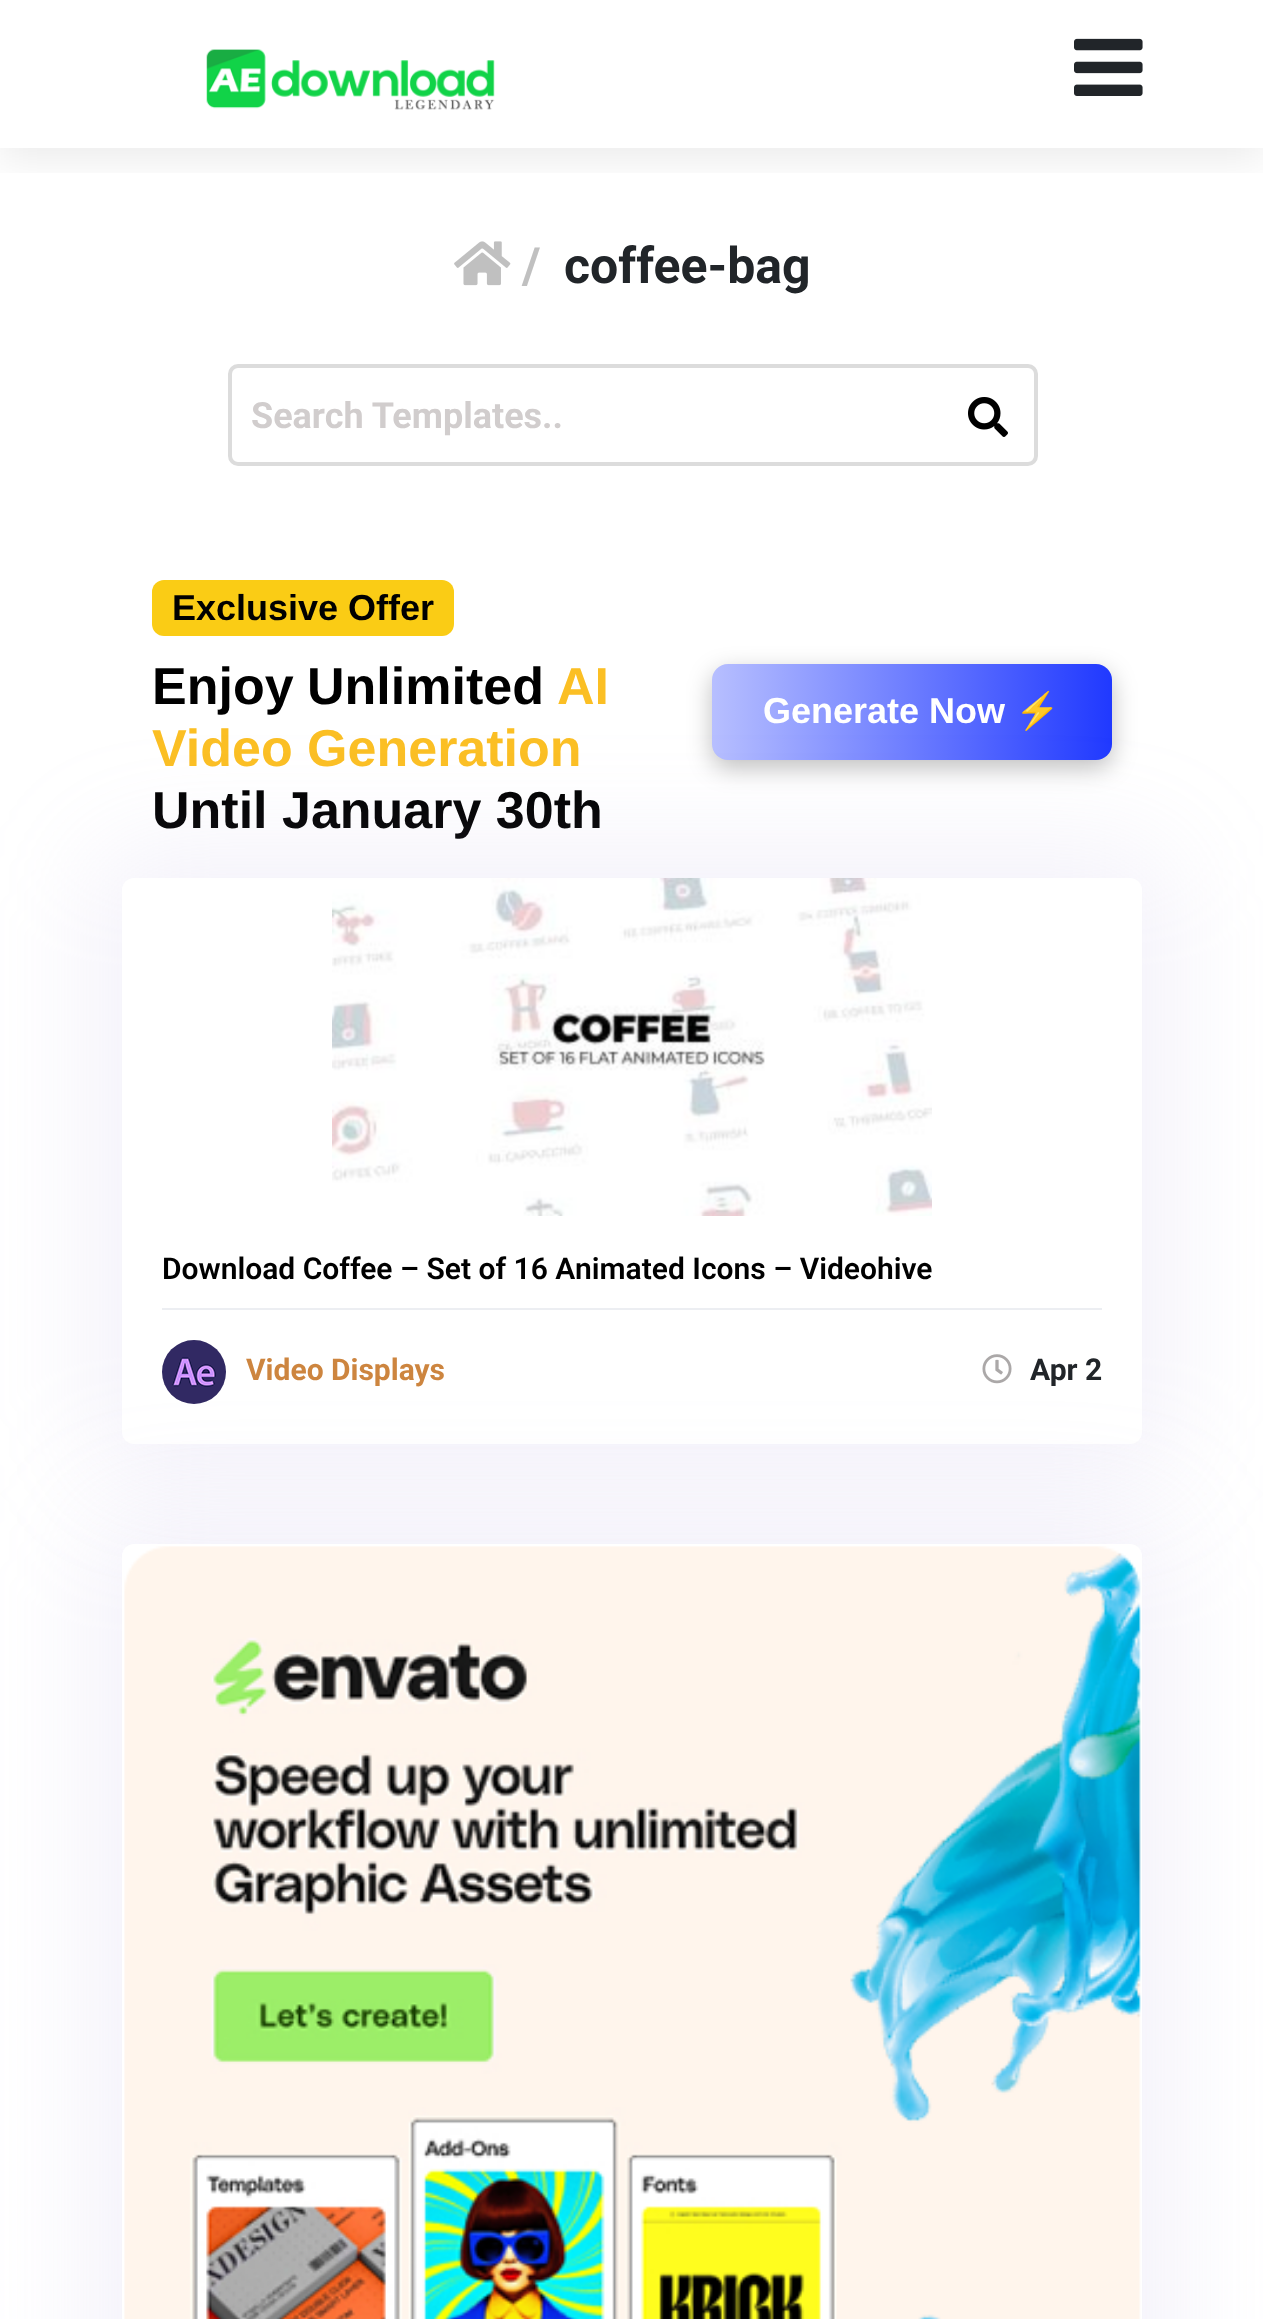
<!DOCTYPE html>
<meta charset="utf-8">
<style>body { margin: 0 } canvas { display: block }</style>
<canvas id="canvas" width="1263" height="2319"></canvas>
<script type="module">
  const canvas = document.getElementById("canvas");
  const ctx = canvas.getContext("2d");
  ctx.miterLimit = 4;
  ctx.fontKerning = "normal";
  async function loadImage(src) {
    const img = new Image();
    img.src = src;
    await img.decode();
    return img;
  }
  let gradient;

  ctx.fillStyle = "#ffffff";
  ctx.fillRect(0, 0, 1263, 2319);
  ctx.save();
  ctx.beginPath();
  ctx.rect(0, 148, 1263, 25);
  ctx.clip();
  ctx.fillStyle = "rgba(0, 0, 0, 0.08)";
  ctx.filter = "blur(20px)";
  ctx.beginPath();
  ctx.rect(0, 12, 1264, 148);
  ctx.fill();
  ctx.filter = "none";
  ctx.restore();
  ctx.drawImage(await loadImage("img1.png"), 206, 49, 289, 61);
  ctx.drawImage(await loadImage("img2.png"), 1074, 38, 69, 58);
  ctx.drawImage(await loadImage("img3.png"), 454, 241, 57, 45);
  ctx.font = "bold 50px Roboto";
  ctx.fillStyle = "#c0c0c0";
  ctx.fillText("/", 522, 283);
  ctx.fillStyle = "#212529";
  ctx.fillText("coffee-bag", 564, 283);
  ctx.beginPath();
  ctx.roundRect(230, 366, 806, 98, 8);
  ctx.strokeStyle = "#dcdcdc";
  ctx.lineWidth = 4;
  ctx.stroke();
  ctx.font = "bold 36px Roboto";
  ctx.fillStyle = "#d1cdcd";
  ctx.fillText("Search Templates..", 251, 428);
  ctx.drawImage(await loadImage("img4.png"), 968, 397, 40, 40);
  ctx.fillStyle = "#facc15";
  ctx.beginPath();
  ctx.roundRect(152, 580, 302, 56, 12);
  ctx.fill();
  ctx.font = "bold 36px Liberation Sans";
  ctx.fillStyle = "#000000";
  ctx.fillText("Exclusive Offer", 172, 620);
  ctx.wordSpacing = "-1px";
  ctx.font = "bold 52px Liberation Sans";
  ctx.fillText("Enjoy Unlimited", 152, 704);
  ctx.wordSpacing = "0px";
  ctx.fillStyle = "#fbbf24";
  ctx.fillText("AI", 557, 704);
  ctx.fillText("Video Generation", 152, 766);
  ctx.fillStyle = "#000000";
  ctx.fillText("Until January 30th", 152, 828);
  ctx.fillStyle = "rgba(0, 0, 0, 0.25)";
  ctx.filter = "blur(12px)";
  ctx.beginPath();
  ctx.roundRect(712, 672, 400, 96, 16);
  ctx.fill();
  ctx.filter = "none";
  gradient = ctx.createLinearGradient(712, 712, 1112, 712);
  gradient.addColorStop(0, "#b7bfff");
  gradient.addColorStop(1, "#2039ff");
  ctx.fillStyle = gradient;
  ctx.beginPath();
  ctx.roundRect(712, 664, 400, 96, 16);
  ctx.fill();
  ctx.font = "bold 36px Liberation Sans";
  ctx.fillStyle = "#ffffff";
  ctx.fillText("Generate Now", 763, 723);
  ctx.font = "bold 36px Noto Color Emoji";
  ctx.fillText("⚡", 1015, 723);
  ctx.fillStyle = "rgba(186, 179, 226, 0.18)";
  ctx.filter = "blur(56px)";
  ctx.beginPath();
  ctx.roundRect(94, 850, 1076, 622, 40);
  ctx.fill();
  ctx.filter = "none";
  ctx.fillStyle = "#ffffff";
  ctx.beginPath();
  ctx.roundRect(122, 878, 1020, 566, 12);
  ctx.fill();
  ctx.drawImage(await loadImage("img5.png"), 332, 878, 600, 338);
  ctx.font = "600 30px Roboto";
  ctx.fillStyle = "#000000";
  ctx.fillText("Download Coffee – Set of 16 Animated Icons – Videohive", 162, 1279);
  ctx.fillStyle = "#eceef2";
  ctx.fillRect(162, 1308, 940, 2);
  ctx.drawImage(await loadImage("img7.png"), 982, 1354, 30, 30);
  ctx.fillStyle = "rgba(186, 179, 226, 0.18)";
  ctx.filter = "blur(56px)";
  ctx.beginPath();
  ctx.roundRect(94, 1516, 1076, 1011, 40);
  ctx.fill();
  ctx.filter = "none";
  ctx.drawImage(await loadImage("img6.png"), 162, 1340, 64, 64);
  ctx.font = "bold 30px Roboto";
  ctx.fillStyle = "#cd853f";
  ctx.fillText("Video Displays", 246, 1380);
  ctx.fillStyle = "#212529";
  ctx.fillText("Apr 2", 1030, 1380);
  ctx.fillStyle = "#ffffff";
  ctx.beginPath();
  ctx.roundRect(122, 1544, 1020, 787, 12);
  ctx.fill();
  ctx.drawImage(await loadImage("img8.png"), 124, 1546, 1017, 773);
</script>
